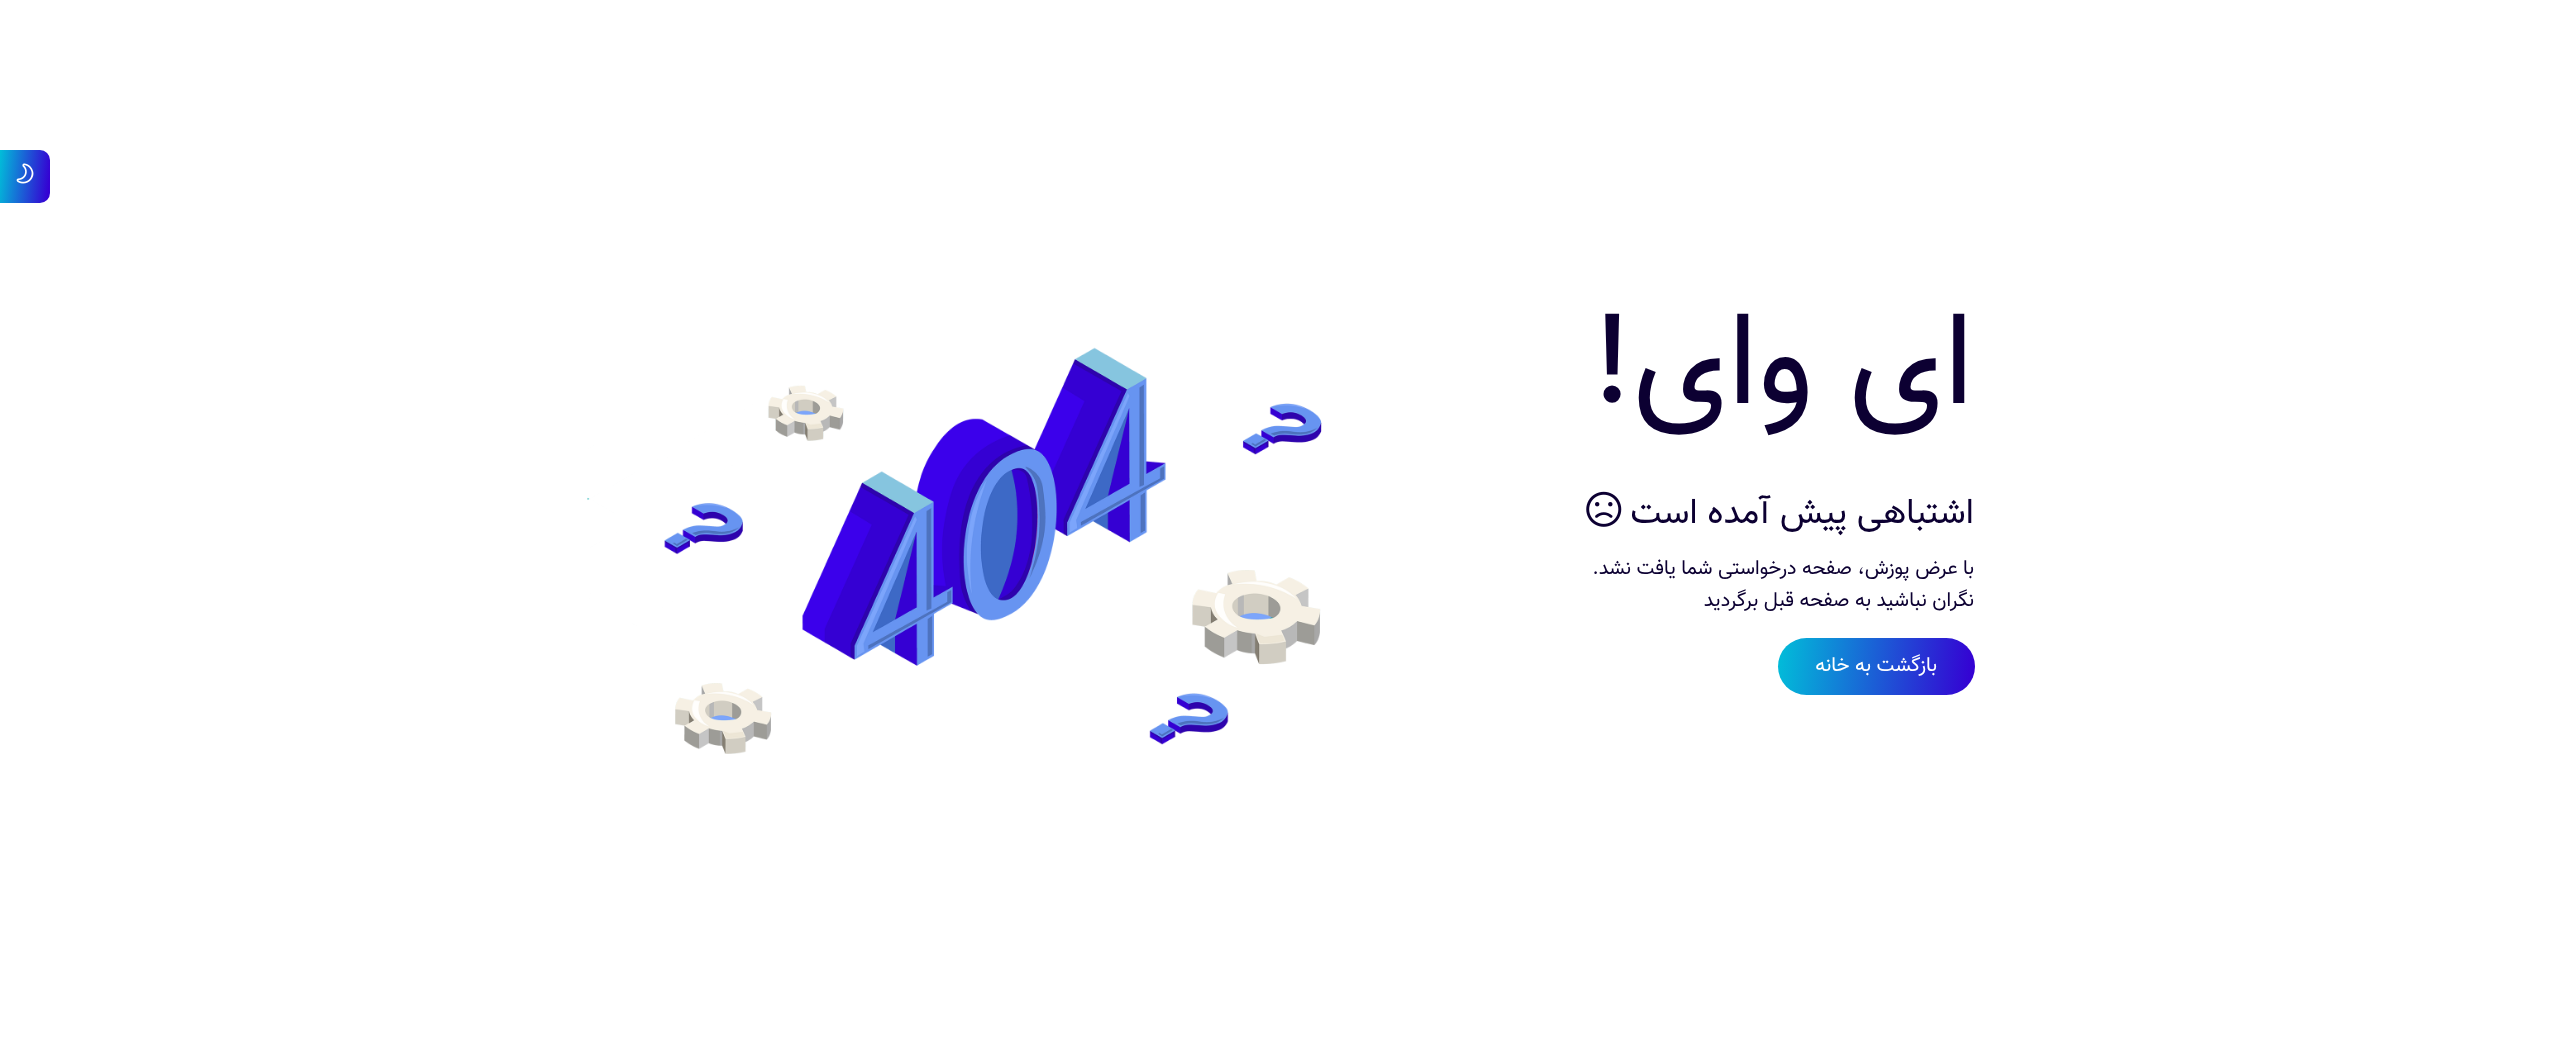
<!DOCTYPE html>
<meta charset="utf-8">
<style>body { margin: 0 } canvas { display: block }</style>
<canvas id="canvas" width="2561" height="1062"></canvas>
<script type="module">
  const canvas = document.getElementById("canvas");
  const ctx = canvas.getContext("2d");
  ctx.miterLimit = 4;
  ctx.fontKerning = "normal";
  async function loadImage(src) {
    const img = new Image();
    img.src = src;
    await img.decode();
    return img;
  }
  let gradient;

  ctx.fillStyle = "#ffffff";
  ctx.fillRect(0, 0, 2561, 1062);
  gradient = ctx.createLinearGradient(-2.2, 171, 102, 182);
  gradient.addColorStop(0, "#01bed9");
  gradient.addColorStop(0.5, "#3500d3");
  gradient.addColorStop(1, "#01bed9");
  ctx.fillStyle = gradient;
  ctx.beginPath();
  ctx.roundRect(0, 150, 50, 53, [0, 10, 10, 0]);
  ctx.fill();
  ctx.drawImage(await loadImage("img1.png"), 16, 163, 18, 21);
  ctx.direction = "rtl";
  ctx.font = "130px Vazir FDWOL";
  ctx.fillStyle = "#0c0032";
  ctx.fillText("ای وای!", 1974, 403);
  ctx.font = "35px Vazir FDWOL";
  ctx.fillText("اشتباهی پیش آمده است", 1974, 523);
  ctx.drawImage(await loadImage("img2.png"), 1586, 491, 36, 36);
  ctx.font = "20px Vazir FDWOL";
  ctx.fillText("با عرض پوزش، صفحه درخواستی شما یافت نشد.", 1974, 574);
  ctx.fillText("نگران نباشید به صفحه قبل برگردید", 1974, 606);
  gradient = ctx.createLinearGradient(1777, 646, 2173, 688);
  gradient.addColorStop(0, "#01bed9");
  gradient.addColorStop(0.5, "#3500d3");
  gradient.addColorStop(1, "#01bed9");
  ctx.fillStyle = gradient;
  ctx.beginPath();
  ctx.roundRect(1778, 638, 197, 57, 28.5);
  ctx.fill();
  ctx.fillStyle = "#ffffff";
  ctx.fillText("بازگشت به خانه", 1937, 671);
  ctx.drawImage(await loadImage("img3.png"), 587, 347, 735, 407);
</script>
